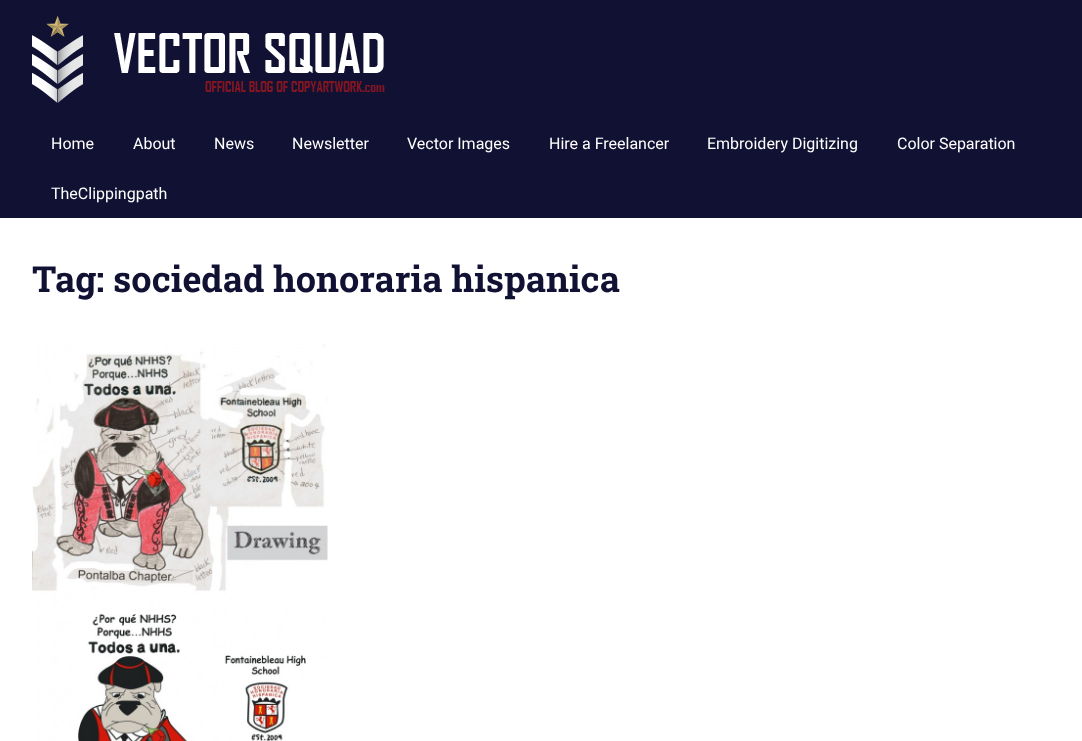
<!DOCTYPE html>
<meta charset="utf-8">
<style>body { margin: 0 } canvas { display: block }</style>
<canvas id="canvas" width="1082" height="741"></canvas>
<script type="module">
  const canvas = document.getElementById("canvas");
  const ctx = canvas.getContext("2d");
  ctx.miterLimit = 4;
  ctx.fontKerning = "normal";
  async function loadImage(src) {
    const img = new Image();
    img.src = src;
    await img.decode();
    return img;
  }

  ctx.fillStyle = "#ffffff";
  ctx.fillRect(0, 0, 1082, 741);
  ctx.fillStyle = "#111133";
  ctx.fillRect(0, 0, 1082, 218);
  ctx.drawImage(await loadImage("img1.png"), 32, 16, 353, 87);
  ctx.font = "16px Roboto";
  ctx.fillStyle = "#ffffff";
  ctx.fillText("Home", 51, 149);
  ctx.fillText("About", 133, 149);
  ctx.fillText("News", 214, 149);
  ctx.fillText("Newsletter", 292, 149);
  ctx.fillText("Vector Images", 407, 149);
  ctx.fillText("Hire a Freelancer", 549, 149);
  ctx.fillText("Embroidery Digitizing", 707, 149);
  ctx.fillText("Color Separation", 897, 149);
  ctx.fillText("TheClippingpath", 51, 199);
  ctx.font = "bold 36px Roboto Slab";
  ctx.fillStyle = "#111133";
  ctx.fillText("Tag: sociedad honoraria hispanica", 32, 292);
  ctx.drawImage(await loadImage("img2.png"), 32, 344, 296, 397);
</script>
